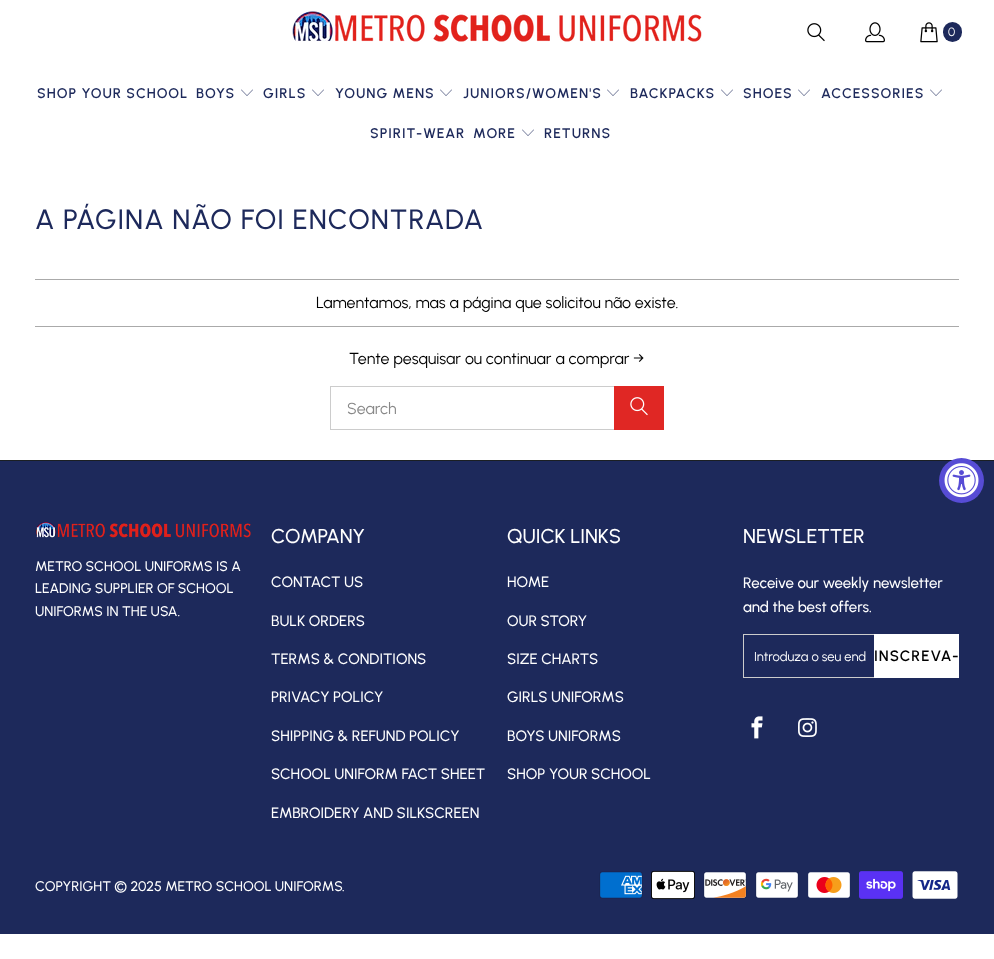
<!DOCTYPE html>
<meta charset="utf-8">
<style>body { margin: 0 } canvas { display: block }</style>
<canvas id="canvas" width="994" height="959"></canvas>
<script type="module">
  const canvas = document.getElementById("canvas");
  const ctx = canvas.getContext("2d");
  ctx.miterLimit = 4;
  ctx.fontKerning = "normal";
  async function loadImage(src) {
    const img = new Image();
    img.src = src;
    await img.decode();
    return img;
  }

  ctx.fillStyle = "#ffffff";
  ctx.fillRect(0, 0, 994, 959);
  ctx.drawImage(await loadImage("img1.png"), 292, 11, 410, 31);
  ctx.drawImage(await loadImage("img2.png"), 807, 23, 18, 19);
  ctx.drawImage(await loadImage("img3.png"), 865, 22, 20, 21);
  ctx.drawImage(await loadImage("img4.png"), 920, 22, 18, 21);
  ctx.fillStyle = "#1d295b";
  ctx.beginPath();
  ctx.roundRect(943, 22, 19, 20, 9.5);
  ctx.fill();
  ctx.letterSpacing = "1px";
  ctx.font = "12px Urbanist";
  ctx.fillStyle = "#ffffff";
  ctx.fillText("0", 948, 36);
  ctx.font = "600 14px Urbanist";
  ctx.fillStyle = "#1d295b";
  ctx.fillText("SHOP YOUR SCHOOL", 37, 98);
  ctx.fillText("BOYS", 196, 98);
  ctx.drawImage(await loadImage("img5.png"), 241, 89, 12, 7);
  ctx.fillText("GIRLS", 263, 98);
  ctx.drawImage(await loadImage("img5.png"), 312, 89, 12, 7);
  ctx.fillText("YOUNG MENS", 335, 98);
  ctx.drawImage(await loadImage("img5.png"), 440, 89, 12, 7);
  ctx.fillText("JUNIORS/WOMEN'S", 463, 98);
  ctx.drawImage(await loadImage("img5.png"), 607, 89, 12, 7);
  ctx.fillText("BACKPACKS", 630, 98);
  ctx.drawImage(await loadImage("img5.png"), 721, 89, 12, 7);
  ctx.fillText("SHOES", 743, 98);
  ctx.drawImage(await loadImage("img5.png"), 798, 89, 12, 7);
  ctx.fillText("ACCESSORIES", 821, 98);
  ctx.drawImage(await loadImage("img5.png"), 930, 89, 12, 7);
  ctx.fillText("SPIRIT-WEAR", 370, 138);
  ctx.fillText("MORE", 473, 138);
  ctx.drawImage(await loadImage("img5.png"), 522, 129, 12, 7);
  ctx.fillText("RETURNS", 544, 138);
  ctx.font = "500 28px Urbanist";
  ctx.fillText("A PÁGINA NÃO FOI ENCONTRADA", 35, 229);
  ctx.fillStyle = "#aaaaaa";
  ctx.fillRect(35, 279, 924, 1);
  ctx.fillRect(35, 326, 924, 1);
  ctx.letterSpacing = "0px";
  ctx.font = "16px Urbanist";
  ctx.fillStyle = "#000000";
  ctx.fillText("Lamentamos, mas a página que solicitou não existe.", 316, 308);
  ctx.fillText("Tente pesquisar ou continuar a comprar →", 349, 364);
  ctx.strokeStyle = "#cccccc";
  ctx.strokeRect(330.5, 386.5, 333, 43);
  ctx.fillStyle = "#888888";
  ctx.fillText("Search", 347, 414);
  ctx.fillStyle = "#e02724";
  ctx.fillRect(614, 386, 50, 44);
  ctx.drawImage(await loadImage("img6.png"), 630, 397, 18, 19);
  ctx.fillStyle = "#1d295b";
  ctx.fillRect(0, 461, 994, 473);
  ctx.fillStyle = "#1b1f23";
  ctx.fillRect(0, 460, 994, 1);
  ctx.fillStyle = "#574cd5";
  ctx.beginPath();
  ctx.arc(961.5, 480.5, 22.5, 0, Math.PI * 2);
  ctx.fill();
  ctx.drawImage(await loadImage("img7.png"), 944, 463, 35, 35);
  ctx.drawImage(await loadImage("img8.png"), 35, 521, 216, 17);
  ctx.font = "500 14px Urbanist";
  ctx.fillStyle = "#ffffff";
  ctx.fillText("METRO SCHOOL UNIFORMS IS A", 35, 571);
  ctx.fillText("LEADING SUPPLIER OF SCHOOL", 35, 593);
  ctx.fillText("UNIFORMS IN THE USA.", 35, 616);
  ctx.font = "500 20px Urbanist";
  ctx.fillText("COMPANY", 271, 543);
  ctx.font = "500 15px Urbanist";
  ctx.fillText("CONTACT US", 271, 587);
  ctx.fillText("BULK ORDERS", 271, 626);
  ctx.fillText("TERMS & CONDITIONS", 271, 664);
  ctx.fillText("PRIVACY POLICY", 271, 702);
  ctx.fillText("SHIPPING & REFUND POLICY", 271, 741);
  ctx.fillText("SCHOOL UNIFORM FACT SHEET", 271, 779);
  ctx.fillText("EMBROIDERY AND SILKSCREEN", 271, 818);
  ctx.font = "500 20px Urbanist";
  ctx.fillText("QUICK LINKS", 507, 543);
  ctx.font = "500 15px Urbanist";
  ctx.fillText("HOME", 507, 587);
  ctx.fillText("OUR STORY", 507, 626);
  ctx.fillText("SIZE CHARTS", 507, 664);
  ctx.fillText("GIRLS UNIFORMS", 507, 702);
  ctx.fillText("BOYS UNIFORMS", 507, 741);
  ctx.fillText("SHOP YOUR SCHOOL", 507, 779);
  ctx.font = "500 20px Urbanist";
  ctx.fillText("NEWSLETTER", 743, 543);
  ctx.font = "500 15px Urbanist";
  ctx.fillText("Receive our weekly newsletter", 743, 588);
  ctx.fillText("and the best offers.", 743, 612);
  ctx.strokeRect(743.5, 634.5, 215, 43);
  ctx.font = "13px Urbanist";
  ctx.fillText("Introduza o seu end", 754, 661);
  ctx.fillRect(874, 634, 85, 44);
  ctx.letterSpacing = "1px";
  ctx.font = "600 15px Urbanist";
  ctx.fillStyle = "#000000";
  ctx.fillText("INSCREVA-", 874, 661);
  ctx.drawImage(await loadImage("img9.png"), 751, 716, 12, 23);
  ctx.drawImage(await loadImage("img10.png"), 798, 718, 19, 19);
  ctx.letterSpacing = "0px";
  ctx.font = "500 14px Urbanist";
  ctx.fillStyle = "#ffffff";
  ctx.fillText("COPYRIGHT © 2025 METRO SCHOOL UNIFORMS", 35, 891);
  ctx.fillText(".", 342, 891);
  ctx.drawImage(await loadImage("img11.png"), 599, 871, 44, 28);
  ctx.drawImage(await loadImage("img12.png"), 651, 870, 44, 30);
  ctx.drawImage(await loadImage("img13.png"), 703, 871, 44, 28);
  ctx.drawImage(await loadImage("img14.png"), 755, 871, 44, 28);
  ctx.drawImage(await loadImage("img15.png"), 808, 872, 42, 26);
  ctx.drawImage(await loadImage("img16.png"), 859, 871, 44, 28);
  ctx.drawImage(await loadImage("img17.png"), 912, 871, 46, 28);
</script>
